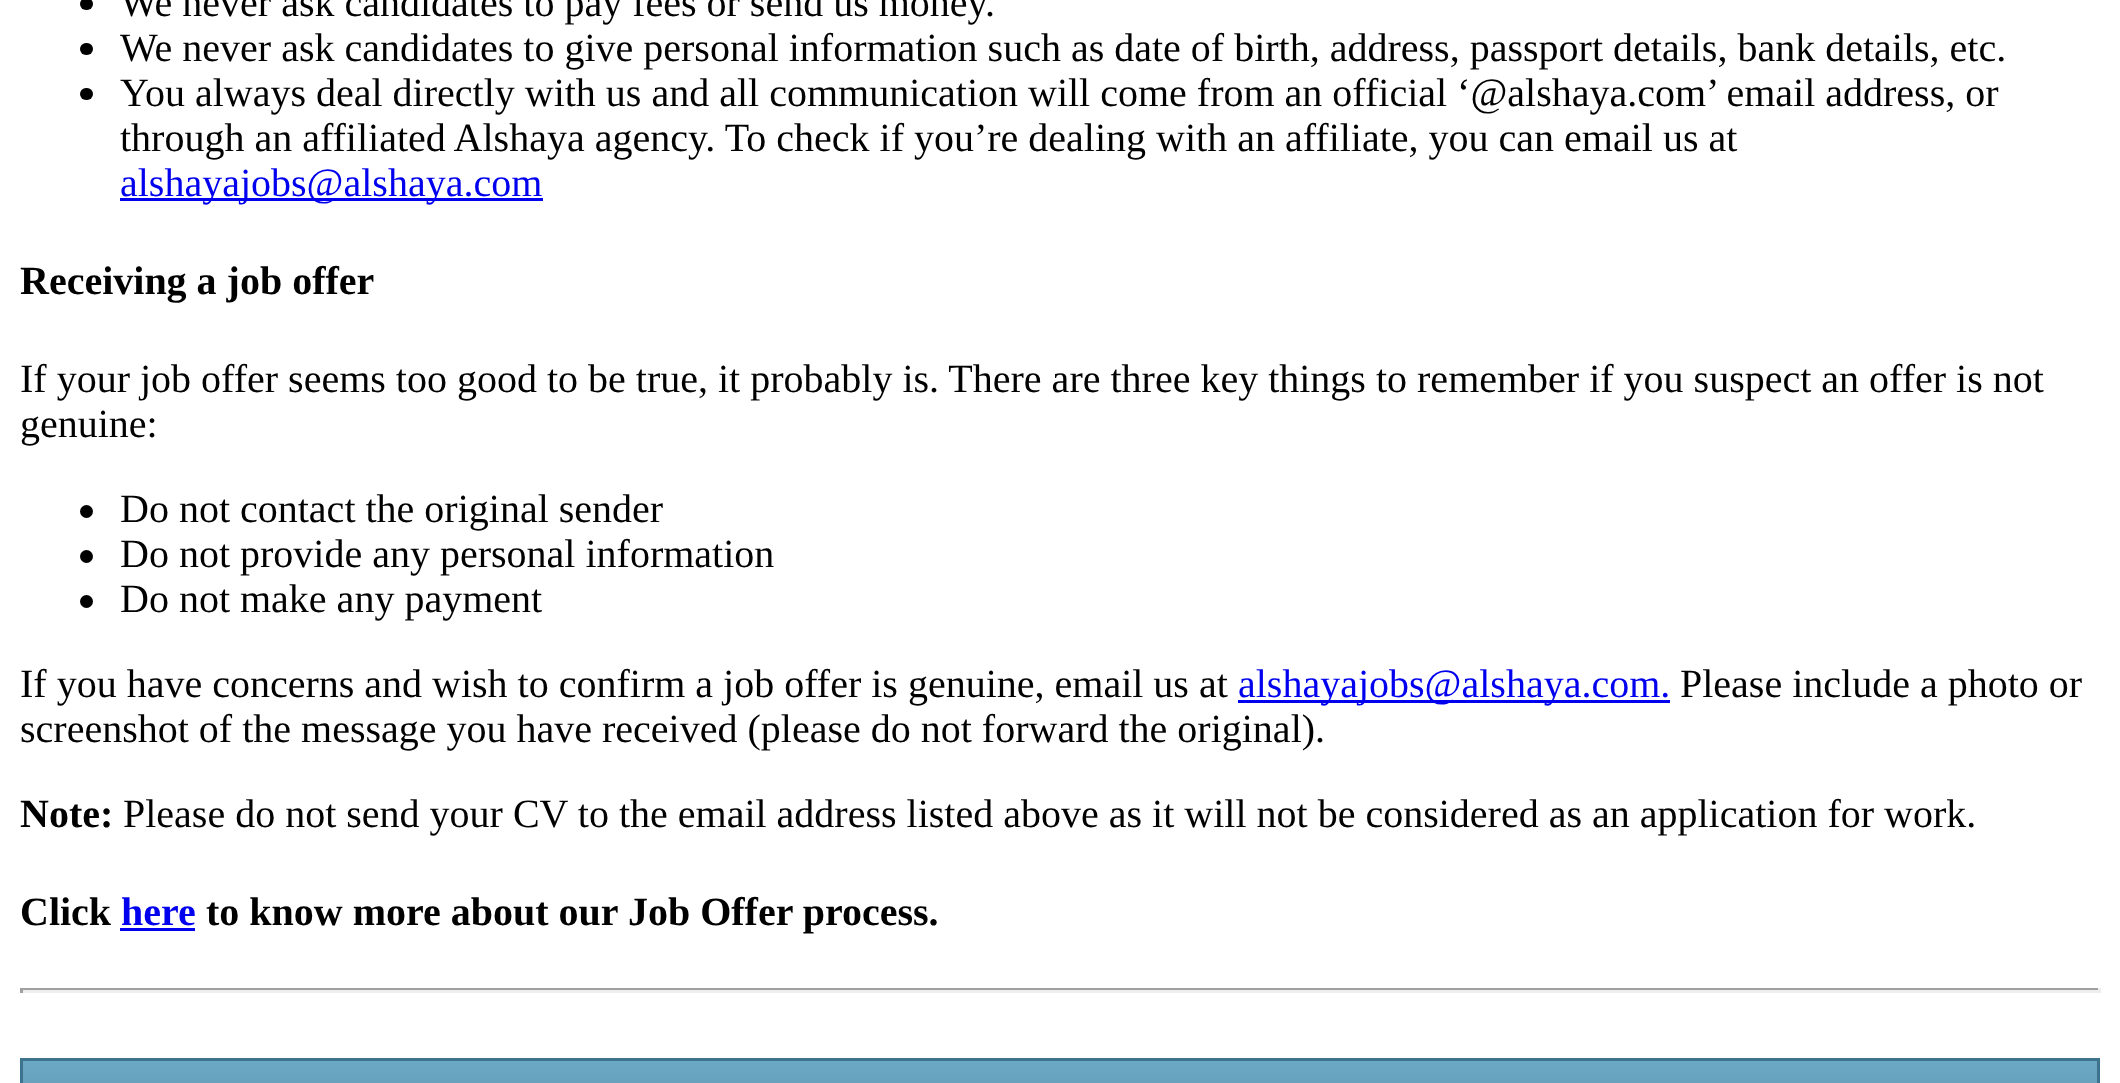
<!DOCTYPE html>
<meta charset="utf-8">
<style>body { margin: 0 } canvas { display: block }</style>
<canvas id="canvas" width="2120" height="1083"></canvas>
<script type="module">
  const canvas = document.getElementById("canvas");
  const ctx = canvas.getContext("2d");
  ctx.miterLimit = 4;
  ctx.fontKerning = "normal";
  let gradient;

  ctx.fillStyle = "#ffffff";
  ctx.fillRect(0, 0, 2120, 1083);
  ctx.fillStyle = "#000000";
  ctx.beginPath();
  ctx.roundRect(80, -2, 13, 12, 6);
  ctx.fill();
  ctx.font = "40px Liberation Serif";
  ctx.fillText("We never ask candidates to pay fees or send us money.", 120, 16);
  ctx.beginPath();
  ctx.roundRect(80, 43, 13, 12, 6);
  ctx.fill();
  ctx.fillText("We never ask candidates to give personal information such as date of birth, address, passport details, bank details, etc.", 120, 61);
  ctx.beginPath();
  ctx.roundRect(80, 88, 13, 12, 6);
  ctx.fill();
  ctx.fillText("You always deal directly with us and all communication will come from an official ‘@alshaya.com’ email address, or", 120, 106);
  ctx.fillText("through an affiliated Alshaya agency. To check if you’re dealing with an affiliate, you can email us at", 120, 151);
  ctx.fillStyle = "#0000ee";
  ctx.fillRect(120, 198, 423, 3);
  ctx.fillText("alshayajobs@alshaya.com", 120, 196);
  ctx.font = "bold 40px Liberation Serif";
  ctx.fillStyle = "#000000";
  ctx.fillText("Receiving a job offer", 20, 294);
  ctx.font = "40px Liberation Serif";
  ctx.fillText("If your job offer seems too good to be true, it probably is. There are three key things to remember if you suspect an offer is not", 20, 392);
  ctx.fillText("genuine:", 20, 437);
  ctx.beginPath();
  ctx.arc(86.5, 511.5, 6.5, 0, Math.PI * 2);
  ctx.fill();
  ctx.fillText("Do not contact the original sender", 120, 522);
  ctx.beginPath();
  ctx.arc(86.5, 556.5, 6.5, 0, Math.PI * 2);
  ctx.fill();
  ctx.fillText("Do not provide any personal information", 120, 567);
  ctx.beginPath();
  ctx.arc(86.5, 601.5, 6.5, 0, Math.PI * 2);
  ctx.fill();
  ctx.fillText("Do not make any payment", 120, 612);
  ctx.fillText("If you have concerns and wish to confirm a job offer is genuine, email us at", 20, 697);
  ctx.fillStyle = "#0000ee";
  ctx.fillRect(1238, 700, 432, 3);
  ctx.fillText("alshayajobs@alshaya.com.", 1238, 697);
  ctx.fillStyle = "#000000";
  ctx.fillText("Please include a photo or", 1680, 697);
  ctx.fillText("screenshot of the message you have received (please do not forward the original).", 20, 742);
  ctx.font = "bold 40px Liberation Serif";
  ctx.fillText("Note:", 20, 827);
  ctx.font = "40px Liberation Serif";
  ctx.fillText("Please do not send your CV to the email address listed above as it will not be considered as an application for work.", 123, 827);
  ctx.font = "bold 40px Liberation Serif";
  ctx.fillText("Click", 20, 925);
  ctx.fillStyle = "#0000ee";
  ctx.fillText("here", 121, 925);
  ctx.fillRect(120, 928, 75, 3);
  ctx.fillStyle = "#000000";
  ctx.fillText("to know more about our Job Offer process.", 206, 925);
  ctx.fillStyle = "#9f9f9f";
  ctx.fillRect(20, 988, 2080, 2);
  ctx.fillStyle = "#eeeeee";
  ctx.fillRect(2098, 988, 3, 5);
  ctx.fillRect(20, 990, 2080, 3);
  ctx.fillStyle = "#9f9f9f";
  ctx.fillRect(20, 988, 3, 5);
  gradient = ctx.createLinearGradient(1060, 1060, 1060, 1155);
  gradient.addColorStop(0, "#6ba8c4");
  gradient.addColorStop(1, "#5b8fa7");
  ctx.fillStyle = gradient;
  ctx.fillRect(23, 1061, 2074, 22);
  ctx.strokeStyle = "#3d738c";
  ctx.lineWidth = 3;
  ctx.strokeRect(21.5, 1059.5, 2077, 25);
</script>
